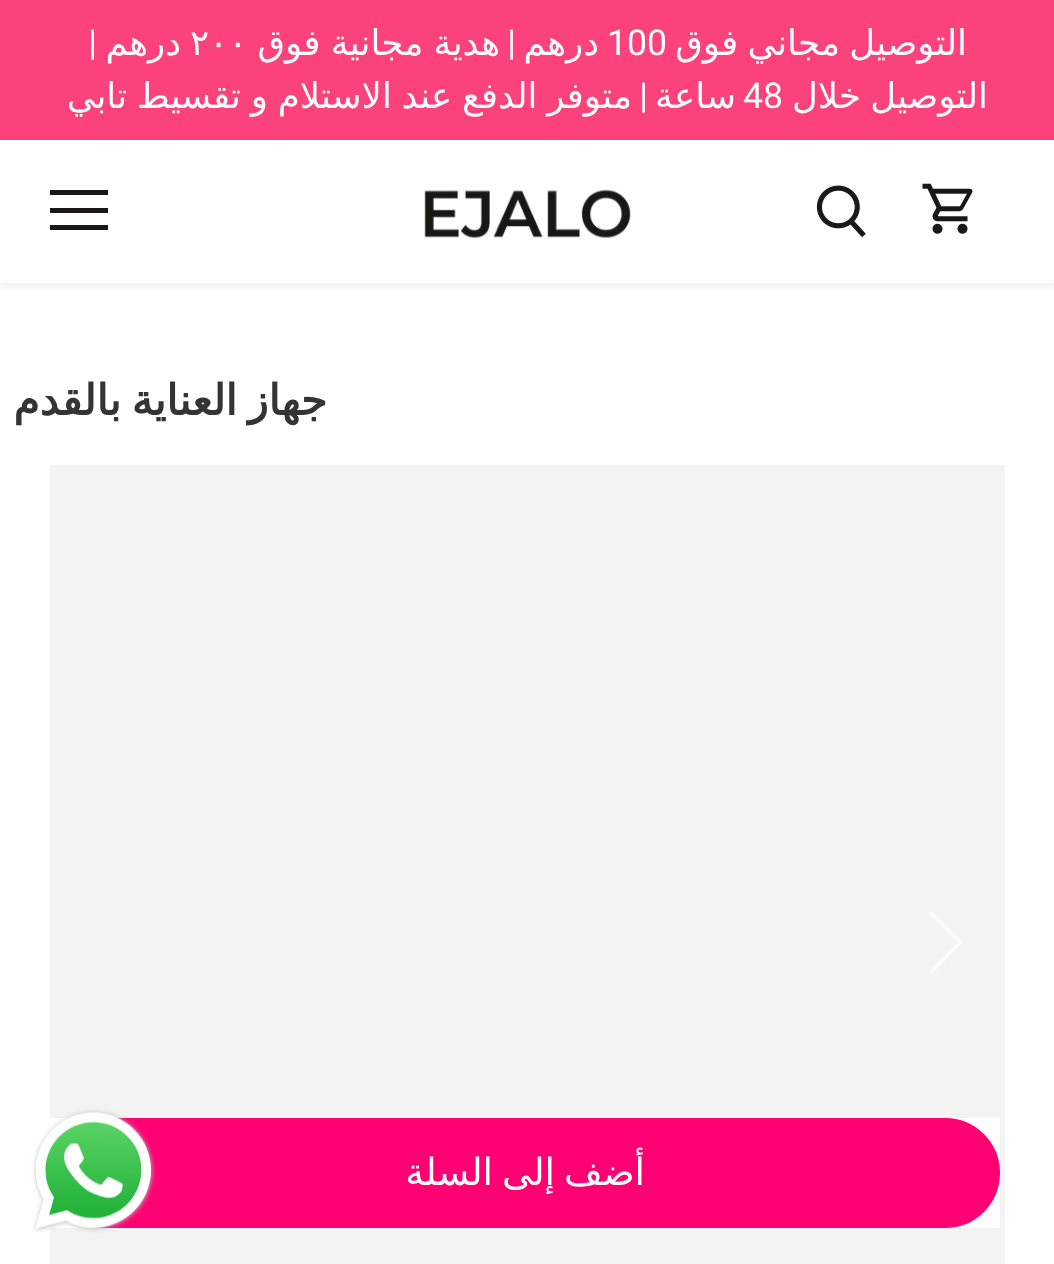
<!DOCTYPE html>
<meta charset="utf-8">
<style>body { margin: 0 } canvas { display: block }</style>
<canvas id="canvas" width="1054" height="1264"></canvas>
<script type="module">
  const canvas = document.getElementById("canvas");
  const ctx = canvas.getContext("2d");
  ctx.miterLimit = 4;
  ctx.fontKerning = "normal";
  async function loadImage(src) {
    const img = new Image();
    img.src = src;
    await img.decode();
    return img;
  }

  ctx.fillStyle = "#ffffff";
  ctx.fillRect(0, 0, 1054, 1264);
  ctx.fillStyle = "rgba(0, 0, 0, 0.08)";
  ctx.filter = "blur(4px)";
  ctx.beginPath();
  ctx.rect(-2, 138, 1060, 147);
  ctx.fill();
  ctx.filter = "none";
  ctx.fillStyle = "#fc427a";
  ctx.fillRect(0, 0, 1054, 140);
  ctx.wordSpacing = "-2px";
  ctx.direction = "rtl";
  ctx.font = "35.6px DejaVu Sans";
  ctx.fillStyle = "#ffffff";
  ctx.fillText("التوصيل مجاني فوق", 967, 55);
  ctx.wordSpacing = "0px";
  ctx.direction = "ltr";
  ctx.font = "35.6px Roboto";
  ctx.fillText("100", 607, 55);
  ctx.direction = "rtl";
  ctx.font = "35.6px DejaVu Sans";
  ctx.fillText("درهم", 599, 55);
  ctx.font = "35.6px Roboto";
  ctx.fillText("|", 516, 55);
  ctx.wordSpacing = "-1px";
  ctx.font = "35.6px DejaVu Sans";
  ctx.fillText("هدية مجانية فوق", 500, 55);
  ctx.wordSpacing = "0px";
  ctx.direction = "ltr";
  ctx.fillText("٢٠٠", 190, 55);
  ctx.direction = "rtl";
  ctx.fillText("درهم", 181, 55);
  ctx.font = "35.6px Roboto";
  ctx.fillText("|", 97, 55);
  ctx.wordSpacing = "-2px";
  ctx.font = "35.6px DejaVu Sans";
  ctx.fillText("التوصيل خلال", 988, 108);
  ctx.wordSpacing = "0px";
  ctx.direction = "ltr";
  ctx.font = "35.6px Roboto";
  ctx.fillText("48", 743, 108);
  ctx.direction = "rtl";
  ctx.font = "35.6px DejaVu Sans";
  ctx.fillText("ساعة", 736, 108);
  ctx.font = "35.6px Roboto";
  ctx.fillText("|", 648, 108);
  ctx.wordSpacing = "-1.5px";
  ctx.font = "35.6px DejaVu Sans";
  ctx.fillText("متوفر الدفع عند الاستلام و تقسيط تابي", 632, 108);
  ctx.fillRect(0, 140, 1054, 143);
  ctx.drawImage(await loadImage("img1.png"), 922, 183, 51, 51);
  ctx.drawImage(await loadImage("img2.png"), 816, 185, 50, 52);
  ctx.drawImage(await loadImage("img3.png"), 424, 189, 207, 50);
  ctx.fillStyle = "#191817";
  ctx.fillRect(50, 190, 58, 5);
  ctx.fillRect(50, 208, 58, 5);
  ctx.fillRect(50, 225, 58, 5);
  ctx.wordSpacing = "-3px";
  ctx.font = "bold 42.5px DejaVu Sans";
  ctx.fillStyle = "#343434";
  ctx.fillText("جهاز العناية بالقدم", 327, 415);
  ctx.fillStyle = "#f3f3f3";
  ctx.fillRect(50, 465, 955, 799);
  ctx.fillStyle = "#fcfcfc";
  ctx.beginPath();
  ctx.moveTo(932, 911);
  ctx.lineTo(929, 914);
  ctx.lineTo(958, 942);
  ctx.lineTo(929, 971);
  ctx.lineTo(932, 974);
  ctx.lineTo(963, 942);
  ctx.closePath();
  ctx.fill();
  ctx.fillStyle = "#ffffff";
  ctx.fillRect(50, 1118, 950, 110);
  ctx.fillStyle = "#ff0072";
  ctx.beginPath();
  ctx.roundRect(52.5, 1120.5, 945, 105, 52.5);
  ctx.fill();
  ctx.strokeStyle = "#ff0072";
  ctx.lineWidth = 5;
  ctx.stroke();
  ctx.font = "37.5px DejaVu Sans";
  ctx.fillStyle = "#ffffff";
  ctx.fillText("أضف إلى السلة", 645, 1185);
  ctx.drawImage(await loadImage("img4.png"), 32, 1109, 124, 124);
</script>
